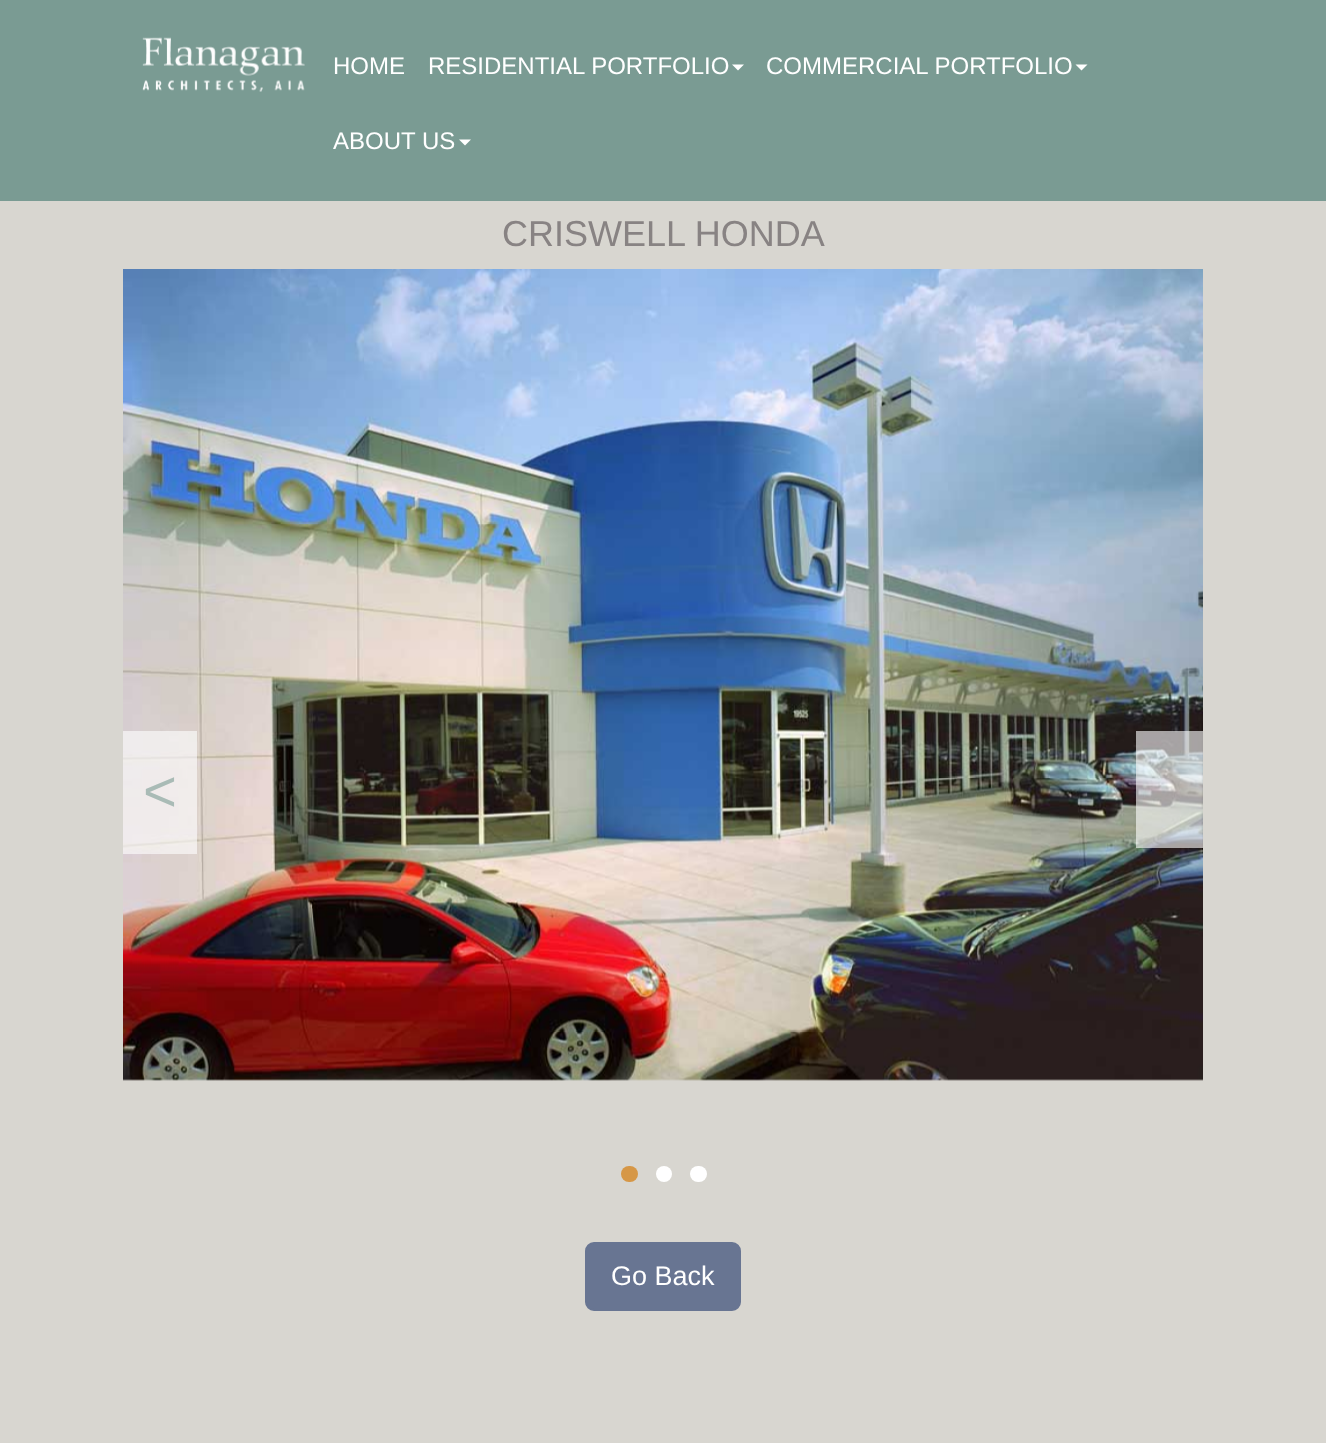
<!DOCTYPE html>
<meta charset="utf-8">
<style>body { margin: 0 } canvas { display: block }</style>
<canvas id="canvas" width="1326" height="1443"></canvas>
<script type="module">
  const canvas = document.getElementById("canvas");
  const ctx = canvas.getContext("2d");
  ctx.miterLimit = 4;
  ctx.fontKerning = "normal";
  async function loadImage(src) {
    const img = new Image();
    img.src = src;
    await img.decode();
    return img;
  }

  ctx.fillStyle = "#d8d6d0";
  ctx.fillRect(0, 0, 1326, 1443);
  ctx.fillStyle = "#7a9b93";
  ctx.fillRect(0, 0, 1326, 201);
  ctx.drawImage(await loadImage("img1.png"), 142, 37, 163, 55);
  ctx.font = "24px Liberation Sans";
  ctx.fillStyle = "#ffffff";
  ctx.fillText("HOME", 333, 74);
  ctx.fillText("RESIDENTIAL PORTFOLIO", 428, 74);
  ctx.beginPath();
  ctx.moveTo(732, 64.5);
  ctx.lineTo(744, 64.5);
  ctx.lineTo(738, 70.5);
  ctx.closePath();
  ctx.fill();
  ctx.fillText("COMMERCIAL PORTFOLIO", 766, 74);
  ctx.beginPath();
  ctx.moveTo(1075.5, 64.5);
  ctx.lineTo(1087.5, 64.5);
  ctx.lineTo(1081.5, 70.5);
  ctx.closePath();
  ctx.fill();
  ctx.fillText("ABOUT US", 333, 149);
  ctx.beginPath();
  ctx.moveTo(459, 139.5);
  ctx.lineTo(471, 139.5);
  ctx.lineTo(465, 145.5);
  ctx.closePath();
  ctx.fill();
  ctx.font = "36px Liberation Sans";
  ctx.fillStyle = "#888383";
  ctx.fillText("CRISWELL HONDA", 502, 246);
  ctx.drawImage(await loadImage("img2.png"), 123, 269, 1080, 812);
  ctx.fillStyle = "rgba(255, 255, 255, 0.6)";
  ctx.fillRect(123, 731, 74, 123);
  ctx.font = "58px Liberation Sans";
  ctx.fillStyle = "#a9bbb6";
  ctx.fillText("<", 143, 811);
  ctx.fillStyle = "rgba(255, 255, 255, 0.6)";
  ctx.fillRect(1136, 731, 67, 117);
  ctx.fillStyle = "#d69746";
  ctx.beginPath();
  ctx.roundRect(621, 1166, 17, 16, 8);
  ctx.fill();
  ctx.fillStyle = "#ffffff";
  ctx.beginPath();
  ctx.arc(664, 1174, 8, 0, Math.PI * 2);
  ctx.fill();
  ctx.beginPath();
  ctx.roundRect(690, 1166, 17, 16, 8);
  ctx.fill();
  ctx.fillStyle = "#687592";
  ctx.beginPath();
  ctx.roundRect(586, 1243, 154, 67, 8);
  ctx.fill();
  ctx.strokeStyle = "#687592";
  ctx.lineWidth = 2;
  ctx.stroke();
  ctx.font = "27px Liberation Sans";
  ctx.fillStyle = "#ffffff";
  ctx.fillText("Go Back", 611, 1285);
</script>
